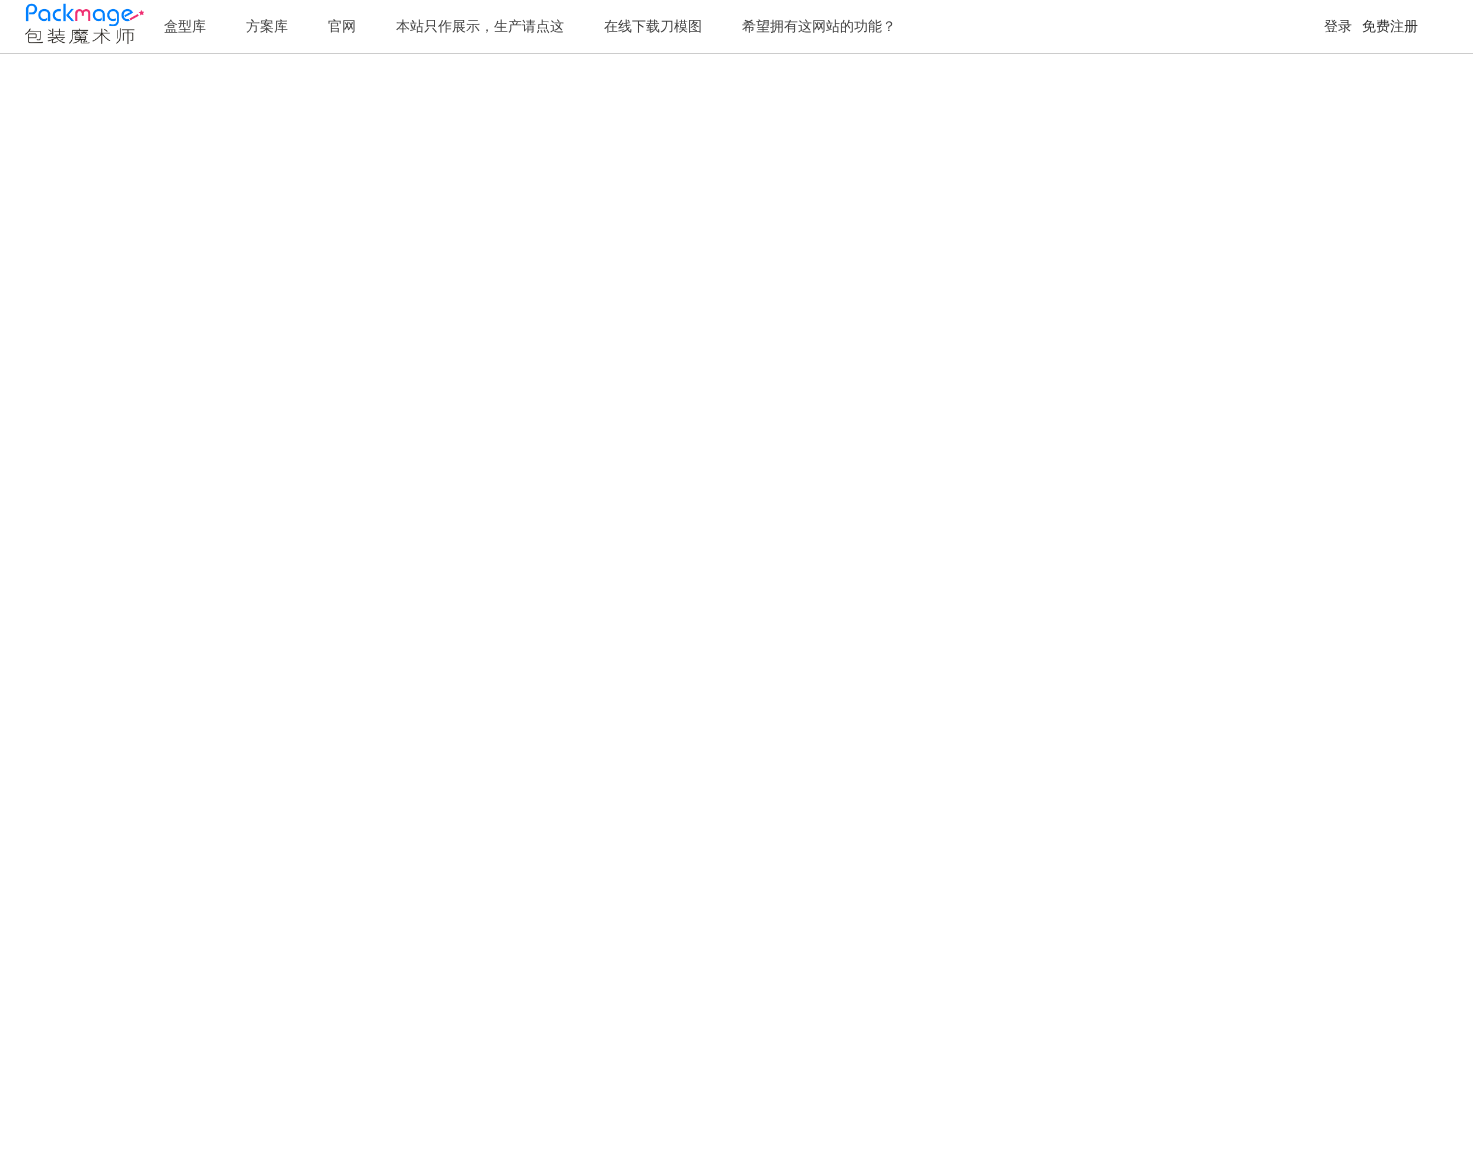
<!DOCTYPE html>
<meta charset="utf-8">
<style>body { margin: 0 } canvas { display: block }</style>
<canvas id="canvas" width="1473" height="1160"></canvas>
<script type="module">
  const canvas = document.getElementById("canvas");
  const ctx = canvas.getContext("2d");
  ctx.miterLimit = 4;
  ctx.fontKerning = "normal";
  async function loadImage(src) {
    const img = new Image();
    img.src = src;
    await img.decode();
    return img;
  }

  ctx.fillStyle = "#ffffff";
  ctx.fillRect(0, 0, 1473, 1160);
  ctx.fillStyle = "#cccccc";
  ctx.fillRect(0, 53, 1473, 1);
  ctx.drawImage(await loadImage("img1.png"), 25, 3, 119, 42);
  ctx.font = "500 14px WenQuanYi Zen Hei";
  ctx.fillStyle = "#444444";
  ctx.fillText("盒型库", 164, 31);
  ctx.fillText("方案库", 246, 31);
  ctx.fillText("官网", 328, 31);
  ctx.fillText("本站只作展示，生产请点这", 396, 31);
  ctx.fillText("在线下载刀模图", 604, 31);
  ctx.fillText("希望拥有这网站的功能？", 742, 31);
  ctx.fillStyle = "#333333";
  ctx.fillText("登录", 1324, 31);
  ctx.fillText("免费注册", 1362, 31);
</script>
